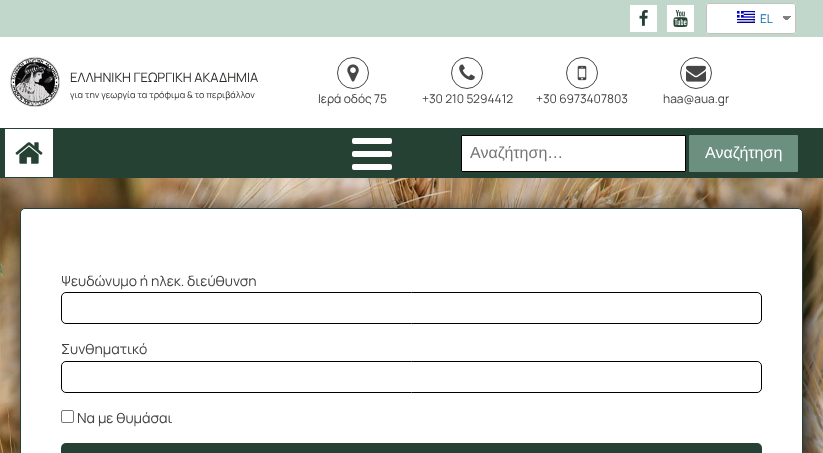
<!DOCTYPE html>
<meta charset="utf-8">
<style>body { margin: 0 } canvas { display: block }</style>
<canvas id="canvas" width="823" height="453"></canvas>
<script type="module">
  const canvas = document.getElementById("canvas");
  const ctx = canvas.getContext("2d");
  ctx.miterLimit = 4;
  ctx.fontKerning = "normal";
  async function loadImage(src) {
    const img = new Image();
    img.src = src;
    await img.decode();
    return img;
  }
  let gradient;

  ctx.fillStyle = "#ffffff";
  ctx.fillRect(0, 0, 823, 453);
  ctx.fillStyle = "#c1d7cb";
  ctx.fillRect(0, 0, 823, 37);
  ctx.fillStyle = "#ffffff";
  ctx.fillRect(630, 5, 27, 27);
  ctx.drawImage(await loadImage("img1.png"), 639, 10, 9, 16);
  ctx.fillRect(667, 5, 27, 27);
  ctx.drawImage(await loadImage("img2.png"), 673, 10, 15, 17);
  ctx.beginPath();
  ctx.roundRect(706, 3, 90, 31, 3);
  ctx.fill();
  gradient = ctx.createLinearGradient(787, 16, 792, 21);
  gradient.addColorStop(0.5, "#808080");
  gradient.addColorStop(0.5, "#ffffff");
  ctx.fillStyle = gradient;
  ctx.fillRect(787, 16, 5, 4);
  gradient = ctx.createLinearGradient(782, 21, 787, 16);
  gradient.addColorStop(0.5, "#ffffff");
  gradient.addColorStop(0.5, "#808080");
  ctx.fillStyle = gradient;
  ctx.fillRect(782, 16, 5, 4);
  ctx.beginPath();
  ctx.roundRect(706.5, 3.5, 89, 30, 2.5);
  ctx.strokeStyle = "#c1c1c1";
  ctx.stroke();
  ctx.drawImage(await loadImage("img3.png"), 737, 11, 18, 12);
  ctx.font = "12px Manrope";
  ctx.fillStyle = "#0769ad";
  ctx.fillText("EL", 760, 23);
  ctx.drawImage(await loadImage("img4.png"), 10, 57, 50, 50);
  ctx.font = "13px Manrope";
  ctx.fillStyle = "#2b2c27";
  ctx.fillText("ΕΛΛΗΝΙΚΗ ΓΕΩΡΓΙΚΗ ΑΚΑΔΗΜΙΑ", 70, 82);
  ctx.font = "9px Manrope";
  ctx.fillText("για την γεωργία τα τρόφιμα & το περιβάλλον", 70, 98);
  ctx.beginPath();
  ctx.arc(353, 73, 15.5, 0, Math.PI * 2);
  ctx.strokeStyle = "#474646";
  ctx.stroke();
  ctx.drawImage(await loadImage("img5.png"), 347, 64, 12, 18);
  ctx.font = "12px Manrope";
  ctx.fillStyle = "#404040";
  ctx.fillText("Ιερά οδός 75", 318, 103);
  ctx.beginPath();
  ctx.arc(467, 73, 15.5, 0, Math.PI * 2);
  ctx.stroke();
  ctx.drawImage(await loadImage("img6.png"), 459, 64, 16, 17);
  ctx.fillText("+30 210 5294412", 422, 103);
  ctx.beginPath();
  ctx.arc(582, 73, 15.5, 0, Math.PI * 2);
  ctx.stroke();
  ctx.drawImage(await loadImage("img7.png"), 577, 65, 10, 16);
  ctx.fillText("+30 6973407803", 536, 103);
  ctx.beginPath();
  ctx.arc(696, 73, 15.5, 0, Math.PI * 2);
  ctx.stroke();
  ctx.drawImage(await loadImage("img8.png"), 686, 65, 20, 17);
  ctx.fillText("haa@aua.gr", 663, 103);
  ctx.fillStyle = "#244133";
  ctx.fillRect(0, 128, 823, 50);
  ctx.fillStyle = "#ffffff";
  ctx.fillRect(5, 129, 48, 48);
  ctx.drawImage(await loadImage("img9.png"), 15, 142, 28, 22);
  ctx.beginPath();
  ctx.roundRect(352, 138, 40, 6, 2);
  ctx.fill();
  ctx.beginPath();
  ctx.roundRect(352, 151, 40, 6, 2);
  ctx.fill();
  ctx.beginPath();
  ctx.roundRect(352, 164, 40, 6, 2);
  ctx.fill();
  ctx.beginPath();
  ctx.roundRect(461.5, 135.5, 224, 36, 0.5);
  ctx.fill();
  ctx.strokeStyle = "#000000";
  ctx.stroke();
  ctx.font = "16px Liberation Sans";
  ctx.fillStyle = "#757575";
  ctx.fillText("Αναζήτηση…", 470, 158);
  ctx.fillStyle = "#6b9080";
  ctx.beginPath();
  ctx.roundRect(689, 135, 109, 37, 1);
  ctx.fill();
  ctx.fillStyle = "#ffffff";
  ctx.fillText("Αναζήτηση", 705, 158);
  ctx.drawImage(await loadImage("img10.png"), 0, 178, 823, 275);
  ctx.fillStyle = "#0a0909";
  ctx.filter = "blur(12.5px)";
  ctx.beginPath();
  ctx.roundRect(25, 213, 783, 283, 5);
  ctx.fill();
  ctx.filter = "none";
  ctx.fillStyle = "#ffffff";
  ctx.beginPath();
  ctx.roundRect(20.5, 208.5, 782, 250, 4.5);
  ctx.fill();
  ctx.strokeStyle = "#244133";
  ctx.stroke();
  ctx.font = "14px Manrope";
  ctx.fillStyle = "#404040";
  ctx.fillText("Ψευδώνυμο ή ηλεκ. διεύθυνση", 61, 286);
  ctx.beginPath();
  ctx.roundRect(61.5, 292.5, 700, 31, 4.5);
  ctx.strokeStyle = "#000000";
  ctx.stroke();
  ctx.fillText("Συνθηματικό", 61, 354);
  ctx.beginPath();
  ctx.roundRect(61.5, 361.5, 700, 31, 4.5);
  ctx.stroke();
  ctx.beginPath();
  ctx.roundRect(61.5, 410.5, 12, 12, 1.5);
  ctx.strokeStyle = "#767676";
  ctx.stroke();
  ctx.fillText("Να με θυμάσαι", 77, 423);
  ctx.fillStyle = "#244133";
  ctx.beginPath();
  ctx.roundRect(61, 443, 701, 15, 5);
  ctx.fill();
</script>
